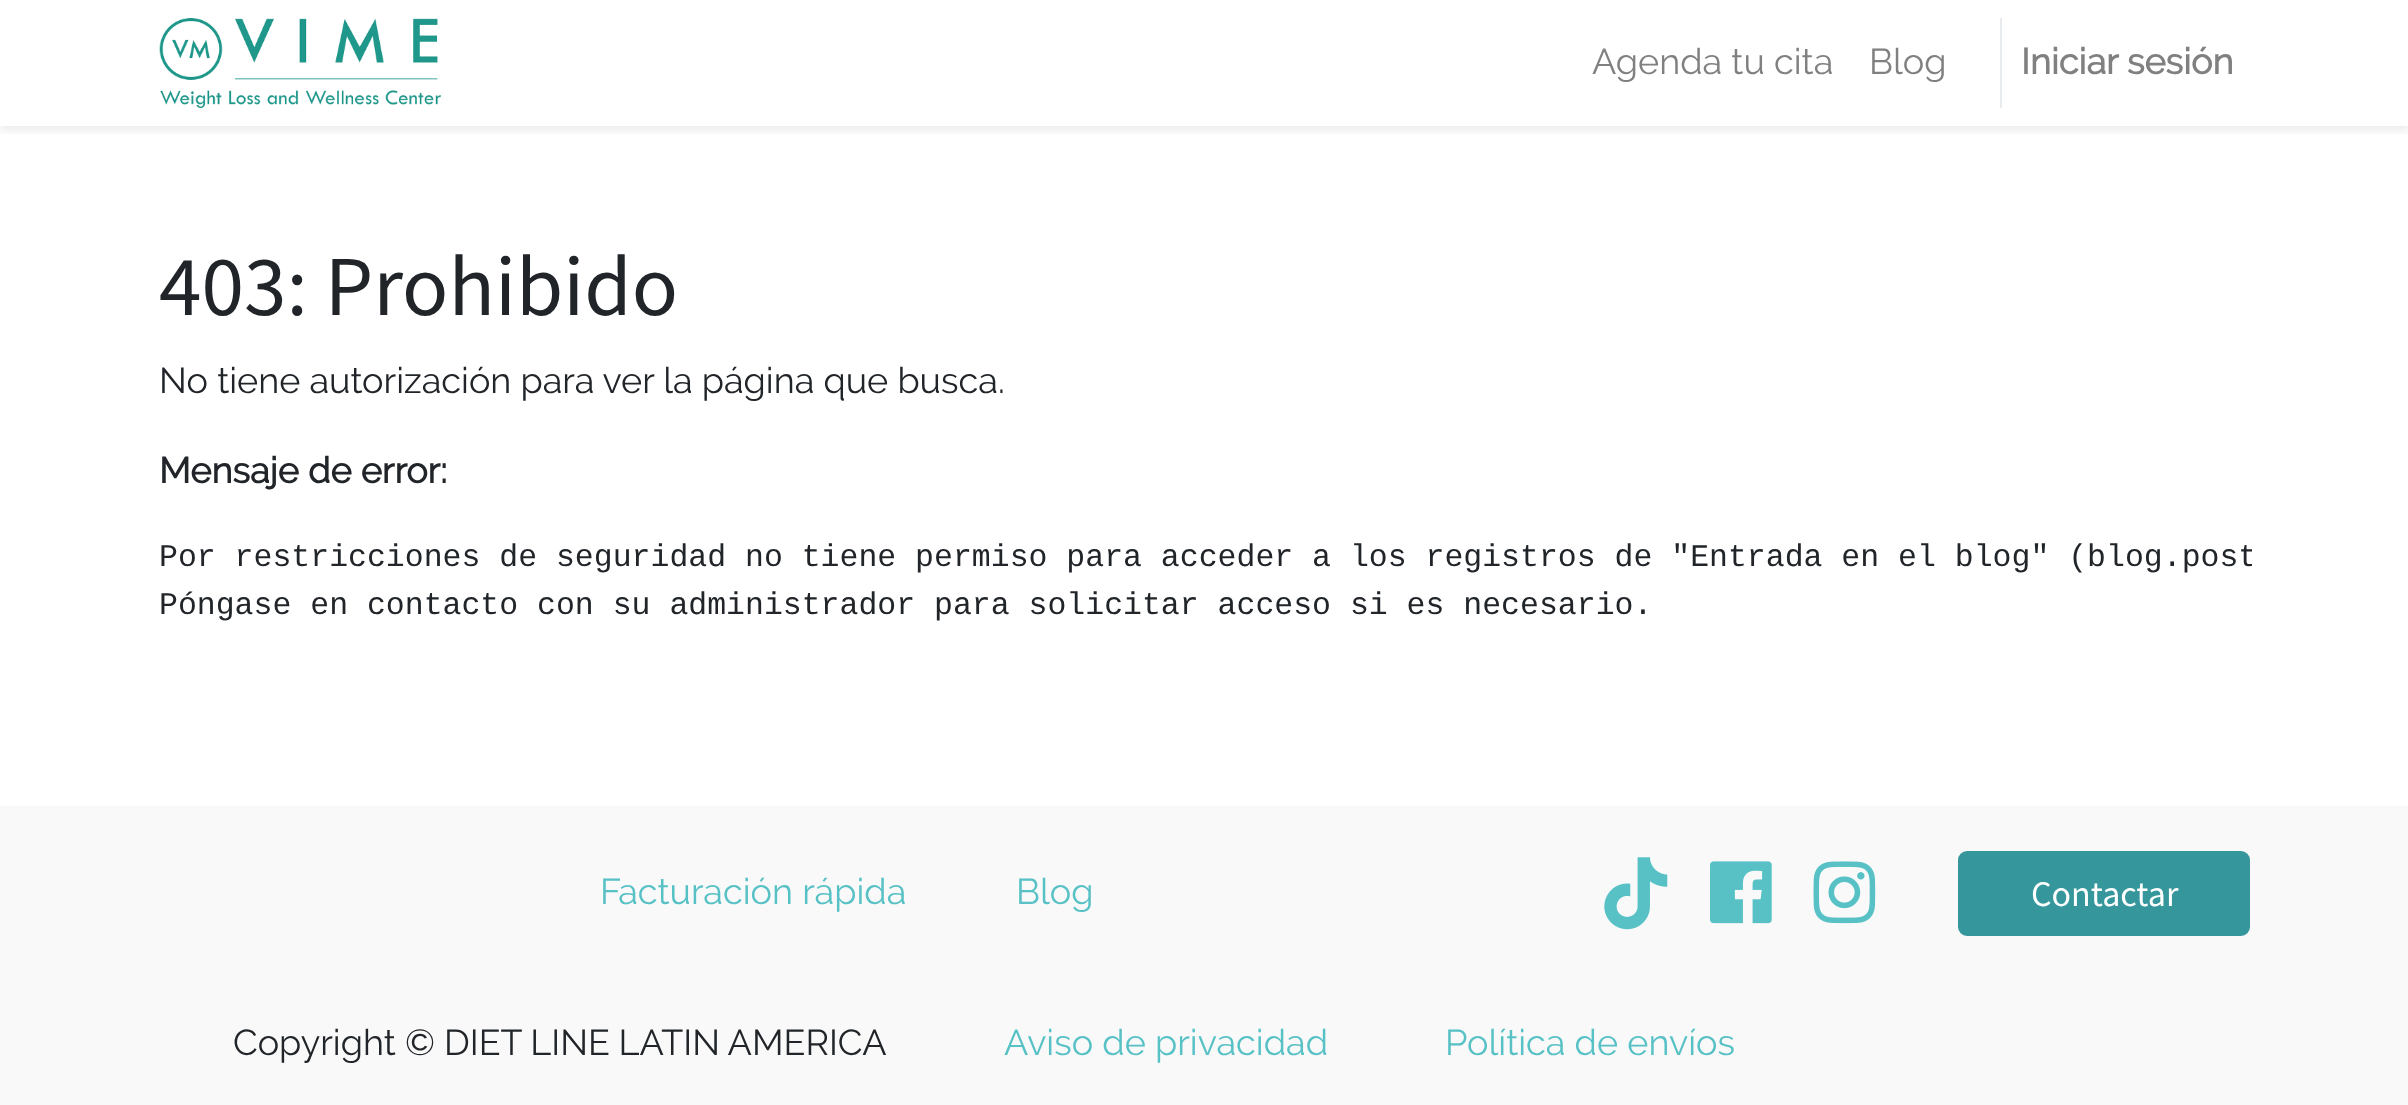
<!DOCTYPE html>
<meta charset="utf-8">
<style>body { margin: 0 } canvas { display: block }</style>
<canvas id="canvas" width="2408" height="1105"></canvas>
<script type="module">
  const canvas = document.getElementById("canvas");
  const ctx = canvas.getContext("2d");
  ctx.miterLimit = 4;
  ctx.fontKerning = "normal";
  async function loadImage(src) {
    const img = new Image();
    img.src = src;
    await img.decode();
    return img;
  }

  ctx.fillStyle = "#ffffff";
  ctx.fillRect(0, 0, 2408, 1105);
  ctx.save();
  ctx.beginPath();
  ctx.rect(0, 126, 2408, 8);
  ctx.clip();
  ctx.fillStyle = "rgba(0, 0, 0, 0.07)";
  ctx.filter = "blur(4.5px)";
  ctx.beginPath();
  ctx.rect(0, 5, 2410, 126);
  ctx.fill();
  ctx.filter = "none";
  ctx.restore();
  ctx.drawImage(await loadImage("img1.png"), 159, 18, 282, 90);
  ctx.font = "36px Raleway";
  ctx.fillStyle = "#808080";
  ctx.fillText("Agenda tu cita", 1592, 74);
  ctx.fillText("Blog", 1869, 74);
  ctx.fillStyle = "#e9ecef";
  ctx.fillRect(2000, 18, 2, 90);
  ctx.font = "bold 36px Raleway";
  ctx.fillStyle = "#808080";
  ctx.fillText("Iniciar sesión", 2021, 74);
  ctx.font = "85.5px Source Sans Pro";
  ctx.fillStyle = "#212529";
  ctx.fillText("403: Prohibido", 159, 315);
  ctx.font = "36px Raleway";
  ctx.fillText("No tiene autorización para ver la página que busca.", 159, 393);
  ctx.font = "bold 36px Raleway";
  ctx.fillText("Mensaje de error:", 159, 483);
  ctx.save();
  ctx.beginPath();
  ctx.rect(160, 536, 2092, 94);
  ctx.clip();
  ctx.font = "31.5px Liberation Mono";
  ctx.fillText("Por restricciones de seguridad no tiene permiso para acceder a los registros de \"Entrada en el blog\" (blog.post", 159, 566);
  ctx.restore();
  ctx.font = "31.5px Liberation Mono";
  ctx.fillText("Póngase en contacto con su administrador para solicitar acceso si es necesario.", 159, 614);
  ctx.fillStyle = "#f9f9f9";
  ctx.fillRect(0, 806, 2408, 299);
  ctx.font = "36px Raleway";
  ctx.fillStyle = "#57c1c6";
  ctx.fillText("Facturación rápida", 600, 904);
  ctx.fillText("Blog", 1016, 904);
  ctx.drawImage(await loadImage("img2.png"), 1604, 857, 64, 73);
  ctx.drawImage(await loadImage("img3.png"), 1710, 861, 62, 63);
  ctx.drawImage(await loadImage("img4.png"), 1813, 861, 63, 63);
  ctx.fillStyle = "#35979c";
  ctx.beginPath();
  ctx.roundRect(1959, 852, 290, 83, 8);
  ctx.fill();
  ctx.strokeStyle = "#35979c";
  ctx.lineWidth = 2;
  ctx.stroke();
  ctx.font = "36px Source Sans Pro";
  ctx.fillStyle = "#ffffff";
  ctx.fillText("Contactar", 2031, 906);
  ctx.font = "36px Raleway";
  ctx.fillStyle = "#212529";
  ctx.fillText("Copyright ©", 233, 1055);
  ctx.wordSpacing = "-0.5px";
  ctx.fillText("DIET LINE LATIN AMERICA", 444, 1055);
  ctx.wordSpacing = "0px";
  ctx.fillStyle = "#57c1c6";
  ctx.fillText("Aviso de privacidad", 1004, 1055);
  ctx.fillText("Política de envíos", 1445, 1055);
</script>
